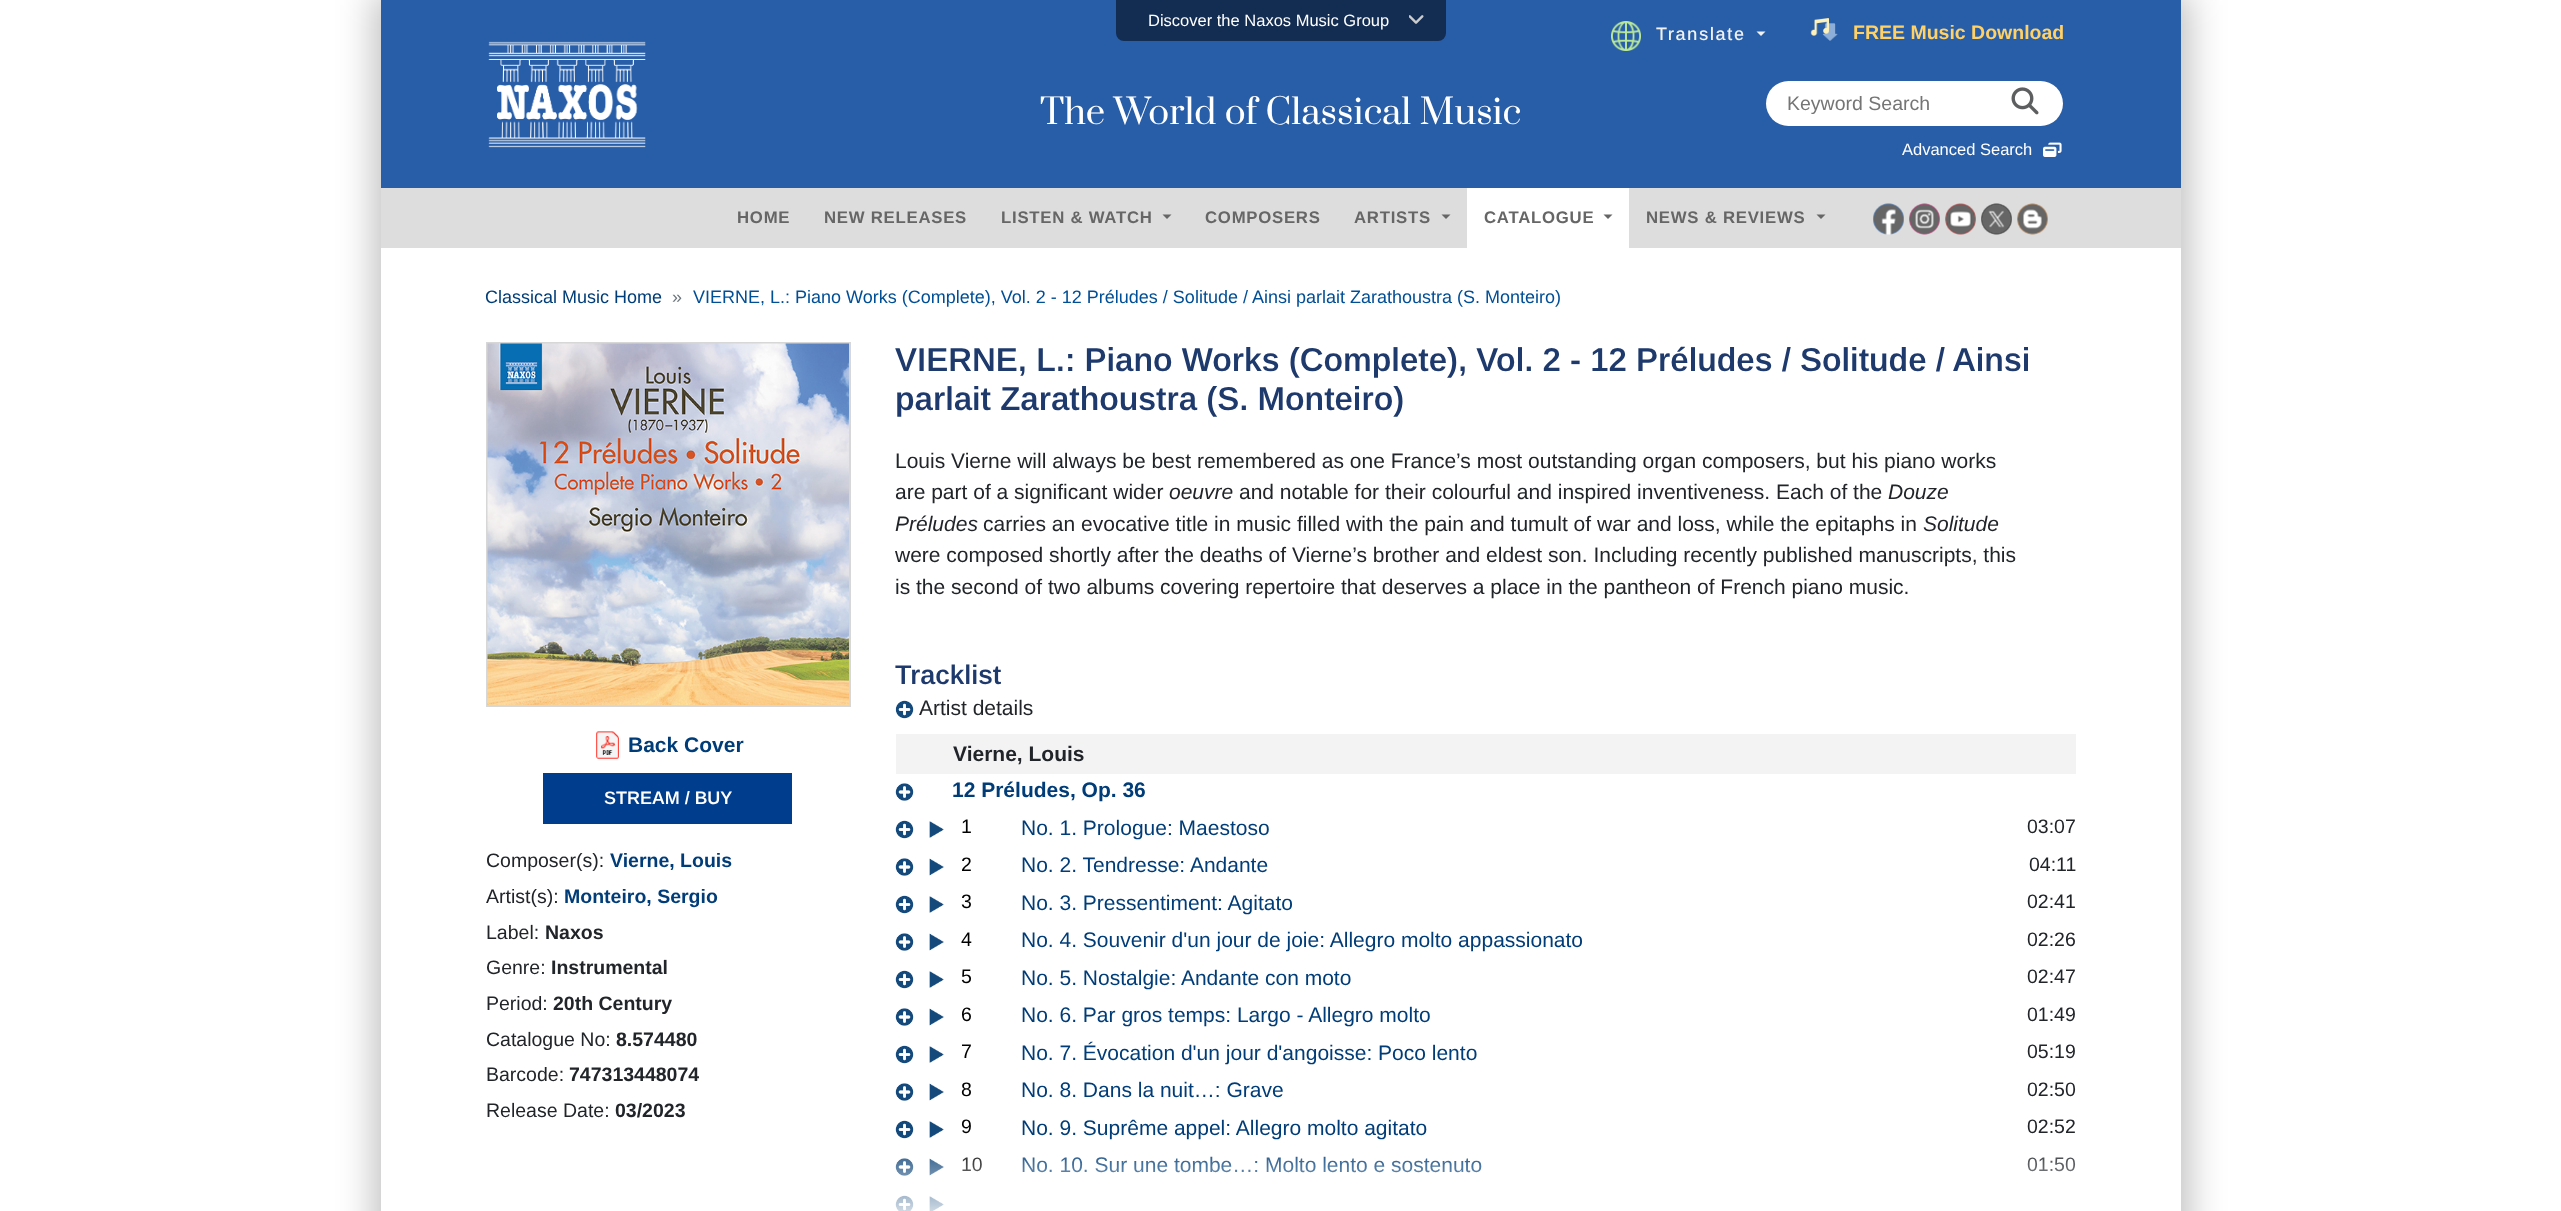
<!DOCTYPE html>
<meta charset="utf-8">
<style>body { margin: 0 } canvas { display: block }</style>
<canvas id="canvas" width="2561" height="1211"></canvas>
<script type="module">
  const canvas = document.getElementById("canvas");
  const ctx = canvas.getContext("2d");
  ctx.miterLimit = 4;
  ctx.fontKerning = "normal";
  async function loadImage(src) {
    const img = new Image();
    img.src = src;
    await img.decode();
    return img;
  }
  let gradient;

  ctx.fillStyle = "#ffffff";
  ctx.fillRect(0, 0, 2561, 1211);
  ctx.save();
  ctx.beginPath();
  ctx.moveTo(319, 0);
  ctx.lineTo(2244, 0);
  ctx.lineTo(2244, 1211);
  ctx.lineTo(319, 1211);
  ctx.closePath();
  ctx.moveTo(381, 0);
  ctx.lineTo(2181, 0);
  ctx.lineTo(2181, 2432);
  ctx.lineTo(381, 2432);
  ctx.closePath();
  ctx.clip("evenodd");
  ctx.fillStyle = "rgba(0, 0, 0, 0.25)";
  ctx.filter = "blur(18px)";
  ctx.beginPath();
  ctx.rect(374, -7, 1815, 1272);
  ctx.fill();
  ctx.filter = "none";
  ctx.restore();
  ctx.fillStyle = "#285ea8";
  ctx.fillRect(381, 0, 1800, 188);
  ctx.fillStyle = "#132d52";
  ctx.beginPath();
  ctx.roundRect(1116, 0, 330, 41, [0, 0, 8, 8]);
  ctx.fill();
  ctx.font = "16.5px Arimo";
  ctx.fillStyle = "#ffffff";
  ctx.fillText("Discover the Naxos Music Group", 1148, 26);
  ctx.drawImage(await loadImage("img1.png"), 1409, 15, 15, 9);
  ctx.drawImage(await loadImage("img2.png"), 488, 41, 158, 107);
  ctx.font = "34.5px Prata";
  ctx.fillText("The World of Classical Music", 1040, 124);
  ctx.drawImage(await loadImage("img3.png"), 1611, 21, 30, 30);
  ctx.letterSpacing = "1.5px";
  ctx.font = "500 18px Arimo";
  ctx.fillStyle = "#f1f1f1";
  ctx.fillText("Translate", 1656, 40);
  ctx.beginPath();
  ctx.moveTo(1756.5, 31.5);
  ctx.lineTo(1765.5, 31.5);
  ctx.lineTo(1761, 36);
  ctx.closePath();
  ctx.fill();
  ctx.drawImage(await loadImage("img4.png"), 1810, 18, 28, 23);
  ctx.letterSpacing = "0px";
  ctx.font = "bold 19.5px Arimo";
  ctx.fillStyle = "#ffd166";
  ctx.fillText("FREE Music Download", 1853, 39);
  ctx.fillStyle = "#ffffff";
  ctx.beginPath();
  ctx.roundRect(1766, 81, 297, 45, 22.5);
  ctx.fill();
  ctx.font = "19.5px Arimo";
  ctx.fillStyle = "#757575";
  ctx.fillText("Keyword Search", 1787, 110);
  ctx.drawImage(await loadImage("img5.png"), 2011, 87, 28, 28);
  ctx.font = "16.5px Arimo";
  ctx.fillStyle = "#ffffff";
  ctx.fillText("Advanced Search", 1902, 155);
  ctx.drawImage(await loadImage("img6.png"), 2043, 142, 19, 15);
  ctx.fillStyle = "#dddddd";
  ctx.fillRect(381, 188, 1800, 60);
  ctx.letterSpacing = "0.75px";
  ctx.font = "bold 16.75px Arimo";
  ctx.fillStyle = "#666666";
  ctx.fillText("HOME", 737, 223);
  ctx.fillText("NEW RELEASES", 824, 223);
  ctx.fillText("LISTEN & WATCH", 1001, 223);
  ctx.beginPath();
  ctx.moveTo(1162.5, 214.5);
  ctx.lineTo(1171.5, 214.5);
  ctx.lineTo(1167, 219);
  ctx.closePath();
  ctx.fill();
  ctx.fillText("COMPOSERS", 1205, 223);
  ctx.fillText("ARTISTS", 1354, 223);
  ctx.beginPath();
  ctx.moveTo(1441.5, 214.5);
  ctx.lineTo(1450.5, 214.5);
  ctx.lineTo(1446, 219);
  ctx.closePath();
  ctx.fill();
  ctx.fillStyle = "#ffffff";
  ctx.fillRect(1467, 188, 162, 60);
  ctx.fillStyle = "#666666";
  ctx.fillText("CATALOGUE", 1484, 223);
  ctx.beginPath();
  ctx.moveTo(1603.5, 214.5);
  ctx.lineTo(1612.5, 214.5);
  ctx.lineTo(1608, 219);
  ctx.closePath();
  ctx.fill();
  ctx.fillText("NEWS & REVIEWS", 1646, 223);
  ctx.beginPath();
  ctx.moveTo(1816.5, 214.5);
  ctx.lineTo(1825.5, 214.5);
  ctx.lineTo(1821, 219);
  ctx.closePath();
  ctx.fill();
  ctx.drawImage(await loadImage("img7.png"), 1873, 203, 31, 32);
  ctx.drawImage(await loadImage("img8.png"), 1873, 203, 31, 32);
  ctx.drawImage(await loadImage("img9.png"), 1909, 203, 31, 32);
  ctx.drawImage(await loadImage("img10.png"), 1909, 203, 31, 32);
  ctx.drawImage(await loadImage("img11.png"), 1945, 203, 31, 32);
  ctx.drawImage(await loadImage("img12.png"), 1945, 203, 31, 32);
  ctx.drawImage(await loadImage("img13.png"), 1981, 203, 31, 32);
  ctx.drawImage(await loadImage("img14.png"), 1981, 203, 31, 32);
  ctx.drawImage(await loadImage("img15.png"), 2017, 203, 31, 32);
  ctx.drawImage(await loadImage("img16.png"), 2017, 203, 31, 32);
  ctx.letterSpacing = "0px";
  ctx.font = "18px Arimo";
  ctx.fillStyle = "#003d78";
  ctx.fillText("Classical Music Home", 485, 303);
  ctx.fillStyle = "#6c757d";
  ctx.fillText("»", 672, 303);
  ctx.fillStyle = "#004e96";
  ctx.fillText("VIERNE, L.: Piano Works (Complete), Vol. 2 - 12 Préludes / Solitude / Ainsi parlait Zarathoustra (S. Monteiro)", 693, 303);
  ctx.strokeStyle = "#d7d7d7";
  ctx.lineWidth = 2;
  ctx.strokeRect(487, 343, 363, 363);
  ctx.drawImage(await loadImage("img17.png"), 487, 343, 362, 362);
  ctx.drawImage(await loadImage("img18.png"), 596, 731, 23, 28);
  ctx.font = "bold 21px Arimo";
  ctx.fillStyle = "#003d78";
  ctx.fillText("Back Cover", 628, 752);
  ctx.fillStyle = "#003d8c";
  ctx.fillRect(543, 773, 249, 51);
  ctx.font = "600 18px Arimo";
  ctx.fillStyle = "#ffffff";
  ctx.fillText("STREAM / BUY", 604, 804);
  ctx.font = "19.5px Arimo";
  ctx.fillStyle = "#212529";
  ctx.fillText("Composer(s):", 486, 867);
  ctx.font = "bold 19.5px Arimo";
  ctx.fillStyle = "#003d78";
  ctx.fillText("Vierne, Louis", 610, 867);
  ctx.font = "19.5px Arimo";
  ctx.fillStyle = "#212529";
  ctx.fillText("Artist(s):", 486, 903);
  ctx.font = "bold 19.5px Arimo";
  ctx.fillStyle = "#003d78";
  ctx.fillText("Monteiro, Sergio", 564, 903);
  ctx.font = "19.5px Arimo";
  ctx.fillStyle = "#212529";
  ctx.fillText("Label:", 486, 939);
  ctx.font = "bold 19.5px Arimo";
  ctx.fillText("Naxos", 545, 939);
  ctx.font = "19.5px Arimo";
  ctx.fillText("Genre:", 486, 974);
  ctx.font = "bold 19.5px Arimo";
  ctx.fillText("Instrumental", 551, 974);
  ctx.font = "19.5px Arimo";
  ctx.fillText("Period:", 486, 1010);
  ctx.font = "bold 19.5px Arimo";
  ctx.fillText("20th Century", 553, 1010);
  ctx.font = "19.5px Arimo";
  ctx.fillText("Catalogue No:", 486, 1046);
  ctx.font = "bold 19.5px Arimo";
  ctx.fillText("8.574480", 616, 1046);
  ctx.font = "19.5px Arimo";
  ctx.fillText("Barcode:", 486, 1081);
  ctx.font = "bold 19.5px Arimo";
  ctx.fillText("747313448074", 569, 1081);
  ctx.font = "19.5px Arimo";
  ctx.fillText("Release Date:", 486, 1117);
  ctx.font = "bold 19.5px Arimo";
  ctx.fillText("03/2023", 615, 1117);
  ctx.font = "600 33px Arimo";
  ctx.fillStyle = "#1e3a6c";
  ctx.fillText("VIERNE, L.: Piano Works (Complete), Vol. 2 - 12 Préludes / Solitude / Ainsi", 895, 371);
  ctx.fillText("parlait Zarathoustra (S. Monteiro)", 895, 410);
  ctx.font = "21px Arimo";
  ctx.fillStyle = "#212529";
  ctx.fillText("Louis Vierne will always be best remembered as one France’s most outstanding organ composers, but his piano works", 895, 468);
  ctx.fillText("are part of a significant wider", 895, 499);
  ctx.font = "italic 21px Arimo";
  ctx.fillText("oeuvre", 1169, 499);
  ctx.font = "21px Arimo";
  ctx.fillText("and notable for their colourful and inspired inventiveness. Each of the", 1239, 499);
  ctx.font = "italic 21px Arimo";
  ctx.fillText("Douze", 1888, 499);
  ctx.fillText("Préludes", 895, 531);
  ctx.font = "21px Arimo";
  ctx.fillText("carries an evocative title in music filled with the pain and tumult of war and loss, while the epitaphs in", 983, 531);
  ctx.font = "italic 21px Arimo";
  ctx.fillText("Solitude", 1923, 531);
  ctx.font = "21px Arimo";
  ctx.fillText("were composed shortly after the deaths of Vierne’s brother and eldest son. Including recently published manuscripts, this", 895, 562);
  ctx.fillText("is the second of two albums covering repertoire that deserves a place in the pantheon of French piano music.", 895, 594);
  ctx.font = "600 27px Arimo";
  ctx.fillStyle = "#1e3a6c";
  ctx.fillText("Tracklist", 895, 684);
  ctx.drawImage(await loadImage("img19.png"), 895, 700, 19, 19);
  ctx.font = "21px Arimo";
  ctx.fillStyle = "#212529";
  ctx.fillText("Artist details", 919, 715);
  ctx.fillStyle = "#f3f3f3";
  ctx.fillRect(896, 734, 1180, 40);
  ctx.font = "bold 21px Arimo";
  ctx.fillStyle = "#212529";
  ctx.fillText("Vierne, Louis", 953, 761);
  ctx.drawImage(await loadImage("img20.png"), 895, 783, 19, 18);
  ctx.fillStyle = "#003d78";
  ctx.fillText("12 Préludes, Op. 36", 952, 797);
  ctx.drawImage(await loadImage("img21.png"), 895, 820, 19, 19);
  ctx.drawImage(await loadImage("img22.png"), 929, 821, 15, 17);
  ctx.font = "19.5px Arimo";
  ctx.fillStyle = "#000000";
  ctx.fillText("1", 961, 833);
  ctx.font = "21px Arimo";
  ctx.fillStyle = "#003d78";
  ctx.fillText("No. 1. Prologue: Maestoso", 1021, 835);
  ctx.font = "19.5px Arimo";
  ctx.fillStyle = "#212529";
  ctx.fillText("03:07", 2027, 833);
  ctx.drawImage(await loadImage("img20.png"), 895, 858, 19, 18);
  ctx.drawImage(await loadImage("img23.png"), 929, 858, 15, 18);
  ctx.fillStyle = "#000000";
  ctx.fillText("2", 961, 871);
  ctx.font = "21px Arimo";
  ctx.fillStyle = "#003d78";
  ctx.fillText("No. 2. Tendresse: Andante", 1021, 872);
  ctx.font = "19.5px Arimo";
  ctx.fillStyle = "#212529";
  ctx.fillText("04:11", 2029, 871);
  ctx.drawImage(await loadImage("img21.png"), 895, 895, 19, 19);
  ctx.drawImage(await loadImage("img22.png"), 929, 896, 15, 17);
  ctx.fillStyle = "#000000";
  ctx.fillText("3", 961, 908);
  ctx.font = "21px Arimo";
  ctx.fillStyle = "#003d78";
  ctx.fillText("No. 3. Pressentiment: Agitato", 1021, 910);
  ctx.font = "19.5px Arimo";
  ctx.fillStyle = "#212529";
  ctx.fillText("02:41", 2027, 908);
  ctx.drawImage(await loadImage("img20.png"), 895, 933, 19, 18);
  ctx.drawImage(await loadImage("img23.png"), 929, 933, 15, 18);
  ctx.fillStyle = "#000000";
  ctx.fillText("4", 961, 946);
  ctx.font = "21px Arimo";
  ctx.fillStyle = "#003d78";
  ctx.fillText("No. 4. Souvenir d'un jour de joie: Allegro molto appassionato", 1021, 947);
  ctx.font = "19.5px Arimo";
  ctx.fillStyle = "#212529";
  ctx.fillText("02:26", 2027, 946);
  ctx.drawImage(await loadImage("img21.png"), 895, 970, 19, 19);
  ctx.drawImage(await loadImage("img22.png"), 929, 971, 15, 17);
  ctx.fillStyle = "#000000";
  ctx.fillText("5", 961, 983);
  ctx.font = "21px Arimo";
  ctx.fillStyle = "#003d78";
  ctx.fillText("No. 5. Nostalgie: Andante con moto", 1021, 985);
  ctx.font = "19.5px Arimo";
  ctx.fillStyle = "#212529";
  ctx.fillText("02:47", 2027, 983);
  ctx.drawImage(await loadImage("img20.png"), 895, 1008, 19, 18);
  ctx.drawImage(await loadImage("img23.png"), 929, 1008, 15, 18);
  ctx.fillStyle = "#000000";
  ctx.fillText("6", 961, 1021);
  ctx.font = "21px Arimo";
  ctx.fillStyle = "#003d78";
  ctx.fillText("No. 6. Par gros temps: Largo - Allegro molto", 1021, 1022);
  ctx.font = "19.5px Arimo";
  ctx.fillStyle = "#212529";
  ctx.fillText("01:49", 2027, 1021);
  ctx.drawImage(await loadImage("img21.png"), 895, 1045, 19, 19);
  ctx.drawImage(await loadImage("img22.png"), 929, 1046, 15, 17);
  ctx.fillStyle = "#000000";
  ctx.fillText("7", 961, 1058);
  ctx.font = "21px Arimo";
  ctx.fillStyle = "#003d78";
  ctx.fillText("No. 7. Évocation d'un jour d'angoisse: Poco lento", 1021, 1060);
  ctx.font = "19.5px Arimo";
  ctx.fillStyle = "#212529";
  ctx.fillText("05:19", 2027, 1058);
  ctx.drawImage(await loadImage("img20.png"), 895, 1083, 19, 18);
  ctx.drawImage(await loadImage("img23.png"), 929, 1083, 15, 18);
  ctx.fillStyle = "#000000";
  ctx.fillText("8", 961, 1096);
  ctx.font = "21px Arimo";
  ctx.fillStyle = "#003d78";
  ctx.fillText("No. 8. Dans la nuit…: Grave", 1021, 1097);
  ctx.font = "19.5px Arimo";
  ctx.fillStyle = "#212529";
  ctx.fillText("02:50", 2027, 1096);
  ctx.drawImage(await loadImage("img21.png"), 895, 1120, 19, 19);
  ctx.drawImage(await loadImage("img22.png"), 929, 1121, 15, 17);
  ctx.fillStyle = "#000000";
  ctx.fillText("9", 961, 1133);
  ctx.font = "21px Arimo";
  ctx.fillStyle = "#003d78";
  ctx.fillText("No. 9. Suprême appel: Allegro molto agitato", 1021, 1135);
  ctx.font = "19.5px Arimo";
  ctx.fillStyle = "#212529";
  ctx.fillText("02:52", 2027, 1133);
  ctx.drawImage(await loadImage("img20.png"), 895, 1158, 19, 18);
  ctx.drawImage(await loadImage("img23.png"), 929, 1158, 15, 18);
  ctx.fillStyle = "#000000";
  ctx.fillText("10", 961, 1171);
  ctx.font = "21px Arimo";
  ctx.fillStyle = "#003d78";
  ctx.fillText("No. 10. Sur une tombe…: Molto lento e sostenuto", 1021, 1172);
  ctx.font = "19.5px Arimo";
  ctx.fillStyle = "#212529";
  ctx.fillText("01:50", 2027, 1171);
  ctx.drawImage(await loadImage("img24.png"), 895, 1195, 19, 16);
  ctx.drawImage(await loadImage("img25.png"), 929, 1196, 15, 15);
  gradient = ctx.createLinearGradient(1486, 1140, 1486, 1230);
  gradient.addColorStop(0, "rgba(255, 255, 255, 0)");
  gradient.addColorStop(1, "#ffffff");
  ctx.fillStyle = gradient;
  ctx.fillRect(895, 1156, 1181, 55);
</script>
